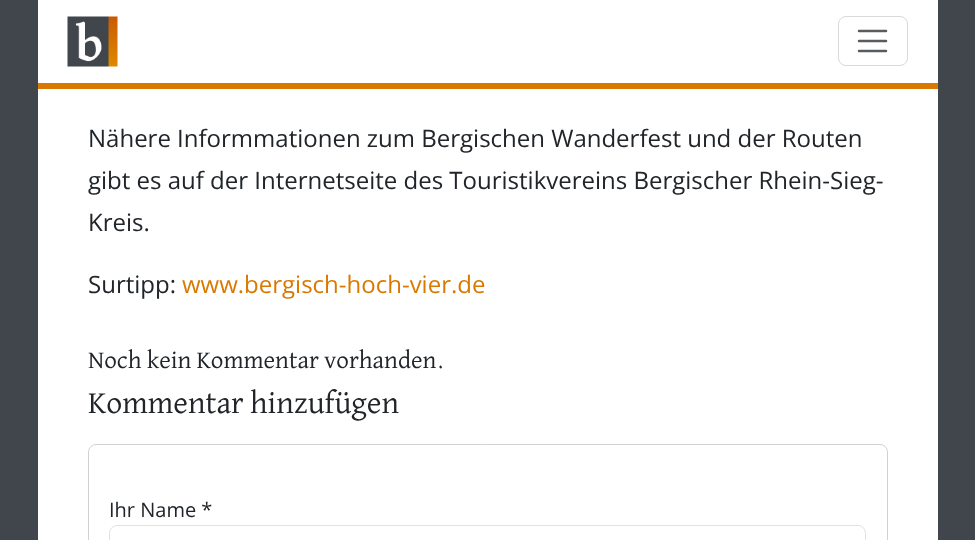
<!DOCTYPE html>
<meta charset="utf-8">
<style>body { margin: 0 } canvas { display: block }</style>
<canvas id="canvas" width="975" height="540"></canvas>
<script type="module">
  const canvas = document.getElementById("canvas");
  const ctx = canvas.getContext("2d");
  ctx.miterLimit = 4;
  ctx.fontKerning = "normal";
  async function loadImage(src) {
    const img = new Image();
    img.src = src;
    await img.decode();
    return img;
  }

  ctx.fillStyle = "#41464d";
  ctx.fillRect(0, 0, 975, 540);
  ctx.fillStyle = "#ffffff";
  ctx.fillRect(38, 0, 900, 83);
  ctx.fillStyle = "#d97900";
  ctx.fillRect(38, 83, 900, 6);
  ctx.drawImage(await loadImage("img1.png"), 67, 16, 51, 51);
  ctx.beginPath();
  ctx.roundRect(838.5, 16.5, 69, 49, 7.5);
  ctx.strokeStyle = "#d9d9d9";
  ctx.stroke();
  ctx.beginPath();
  ctx.moveTo(859, 31);
  ctx.lineTo(886, 31);
  ctx.moveTo(859, 41);
  ctx.lineTo(886, 41);
  ctx.moveTo(859, 51);
  ctx.lineTo(886, 51);
  ctx.strokeStyle = "#595c5f";
  ctx.lineWidth = 2.5;
  ctx.lineCap = "round";
  ctx.stroke();
  ctx.fillStyle = "#ffffff";
  ctx.fillRect(38, 89, 900, 451);
  ctx.font = "24px Open Sans";
  ctx.fillStyle = "#212529";
  ctx.fillText("Nähere Informmationen zum Bergischen Wanderfest und der Routen", 88, 147);
  ctx.fillText("gibt es auf der Internetseite des Touristikvereins Bergischer Rhein-Sieg-", 88, 189);
  ctx.fillText("Kreis.", 88, 231);
  ctx.fillText("Surtipp:", 88, 293);
  ctx.fillStyle = "#d97900";
  ctx.fillText("www.bergisch-hoch-vier.de", 182, 293);
  ctx.font = "25px David Libre";
  ctx.fillStyle = "#212529";
  ctx.fillText("Noch kein Kommentar vorhanden.", 88, 368);
  ctx.font = "31.75px David Libre";
  ctx.fillText("Kommentar hinzufügen", 88, 413);
  ctx.beginPath();
  ctx.roundRect(88.5, 444.5, 799, 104, 7.5);
  ctx.strokeStyle = "#d2d2d2";
  ctx.lineWidth = 1;
  ctx.stroke();
  ctx.font = "20px Open Sans";
  ctx.fillText("Ihr Name *", 109, 517);
  ctx.beginPath();
  ctx.roundRect(109.5, 525.5, 756, 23, 7.5);
  ctx.strokeStyle = "#dee2e6";
  ctx.stroke();
</script>
